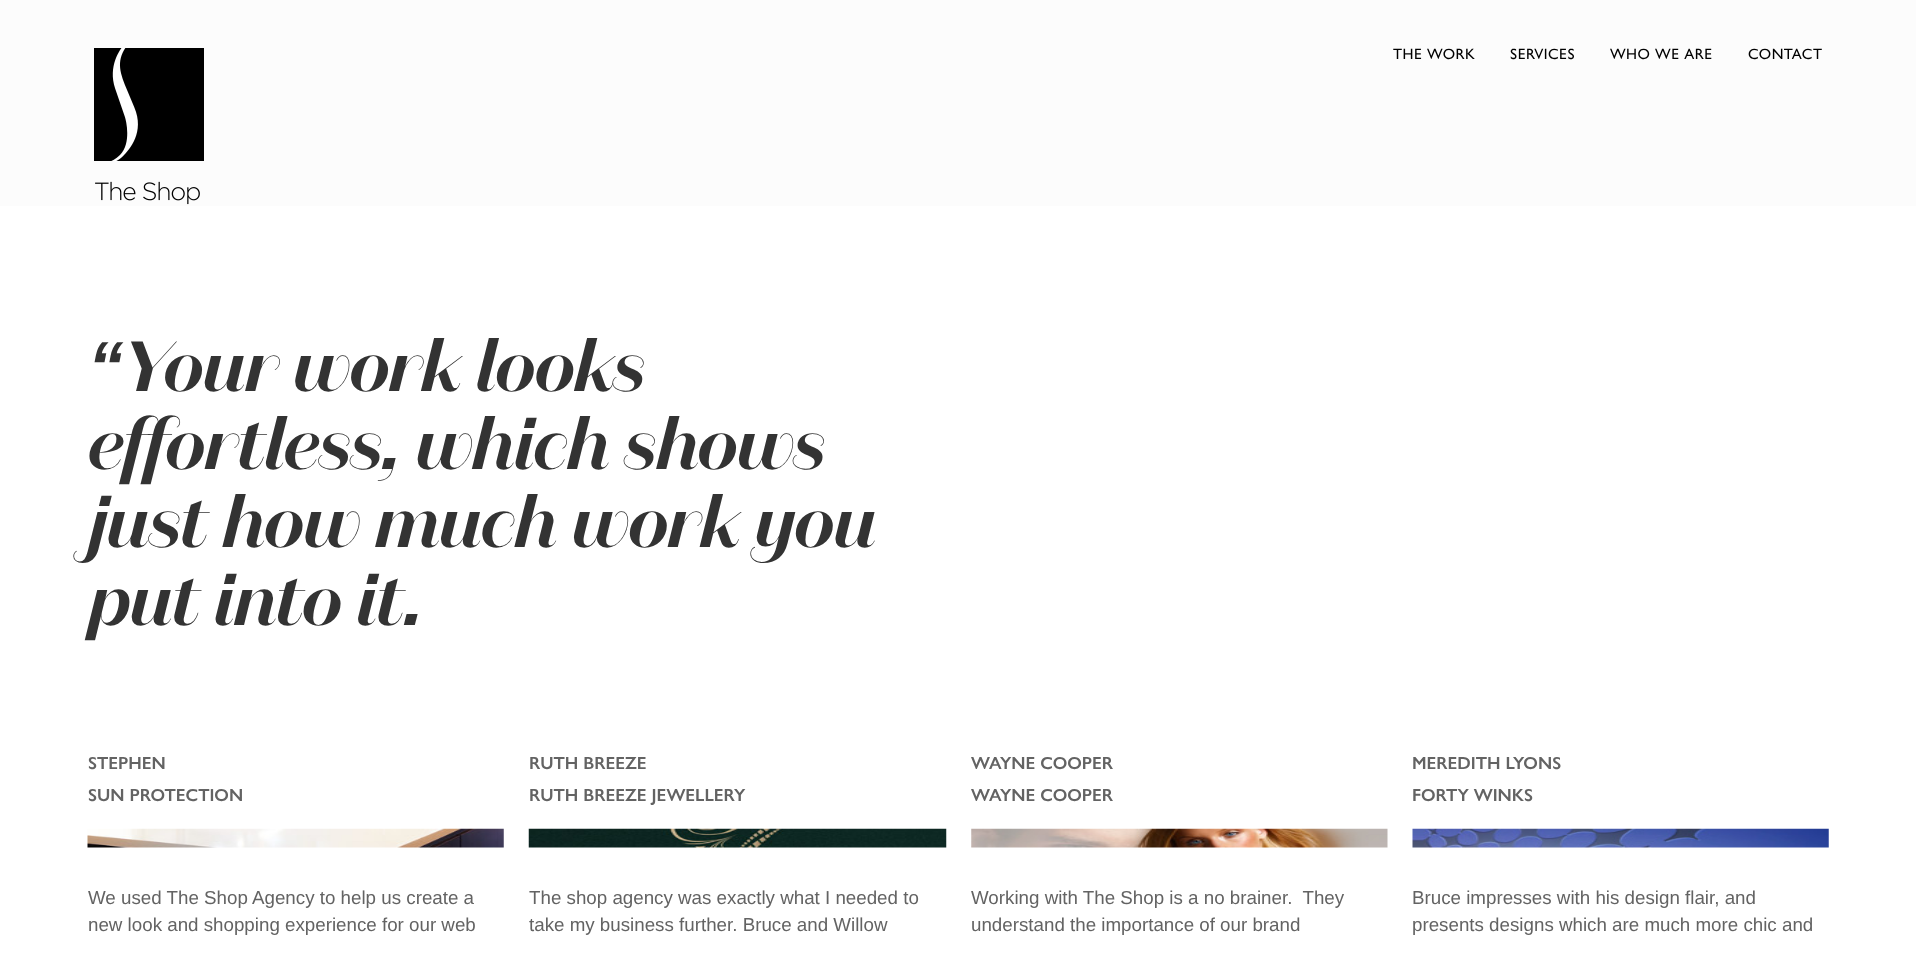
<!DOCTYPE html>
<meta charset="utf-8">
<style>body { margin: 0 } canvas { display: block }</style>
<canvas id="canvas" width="1916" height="954"></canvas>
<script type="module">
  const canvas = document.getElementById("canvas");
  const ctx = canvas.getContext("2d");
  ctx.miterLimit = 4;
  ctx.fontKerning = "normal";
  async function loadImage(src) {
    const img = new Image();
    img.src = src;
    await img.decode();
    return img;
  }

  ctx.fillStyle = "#ffffff";
  ctx.fillRect(0, 0, 1916, 954);
  ctx.fillStyle = "#fcfcfc";
  ctx.fillRect(0, 0, 1916, 206);
  ctx.drawImage(await loadImage("img1.png"), 94, 48, 110, 157);
  ctx.letterSpacing = "0.5px";
  ctx.font = "500 15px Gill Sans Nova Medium";
  ctx.fillStyle = "#000000";
  ctx.fillText("THE WORK", 1393, 59);
  ctx.fillText("SERVICES", 1510, 59);
  ctx.fillText("WHO WE ARE", 1610, 59);
  ctx.fillText("CONTACT", 1748, 59);
  ctx.letterSpacing = "-1.4px";
  ctx.font = "italic bold 70.9px Liberation Sans";
  ctx.fillStyle = "#333333";
  ctx.fillText("“", 88, 391);
  ctx.font = "italic 600 70.9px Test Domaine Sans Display";
  ctx.fillText("Your work looks", 122, 391);
  ctx.fillText("effortless, which shows", 88, 469);
  ctx.fillText("just how much work you", 88, 547);
  ctx.fillText("put into it.", 88, 625);
  ctx.letterSpacing = "0px";
  ctx.font = "600 17.5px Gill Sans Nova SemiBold";
  ctx.fillStyle = "#636363";
  ctx.fillText("STEPHEN", 88, 769);
  ctx.fillText("SUN PROTECTION", 88, 801);
  ctx.drawImage(await loadImage("img2.png"), 87, 828, 417, 20);
  ctx.font = "18.75px Liberation Sans";
  ctx.fillText("We used The Shop Agency to help us create a", 88, 904);
  ctx.fillText("new look and shopping experience for our web", 88, 931);
  ctx.font = "600 17.5px Gill Sans Nova SemiBold";
  ctx.fillText("RUTH BREEZE", 529, 769);
  ctx.fillText("RUTH BREEZE JEWELLERY", 529, 801);
  ctx.drawImage(await loadImage("img3.png"), 528, 828, 419, 20);
  ctx.font = "18.75px Liberation Sans";
  ctx.fillText("The shop agency was exactly what I needed to", 529, 904);
  ctx.fillText("take my business further. Bruce and Willow", 529, 931);
  ctx.font = "600 17.5px Gill Sans Nova SemiBold";
  ctx.fillText("WAYNE COOPER", 971, 769);
  ctx.fillText("WAYNE COOPER", 971, 801);
  ctx.drawImage(await loadImage("img4.png"), 971, 828, 417, 20);
  ctx.font = "18.75px Liberation Sans";
  ctx.fillText("Working with The Shop is a no brainer.  They", 971, 904);
  ctx.fillText("understand the importance of our brand", 971, 931);
  ctx.font = "600 17.5px Gill Sans Nova SemiBold";
  ctx.fillText("MEREDITH LYONS", 1412, 769);
  ctx.fillText("FORTY WINKS", 1412, 801);
  ctx.drawImage(await loadImage("img5.png"), 1412, 828, 417, 20);
  ctx.font = "18.75px Liberation Sans";
  ctx.fillText("Bruce impresses with his design flair, and", 1412, 904);
  ctx.fillText("presents designs which are much more chic and", 1412, 931);
</script>
